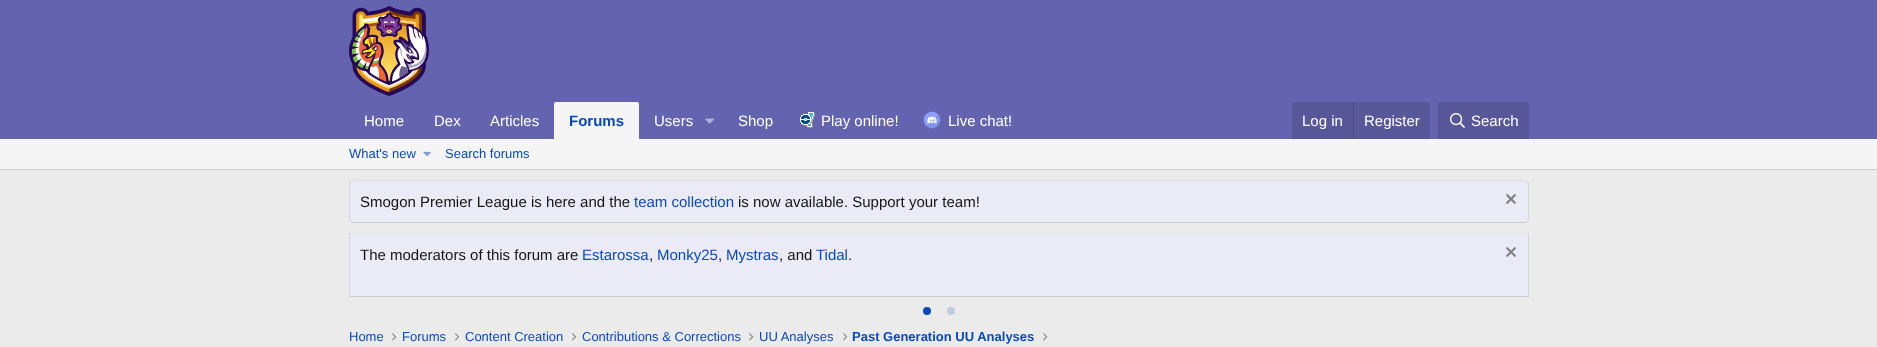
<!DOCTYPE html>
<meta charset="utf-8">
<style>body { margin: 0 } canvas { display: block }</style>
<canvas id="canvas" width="1877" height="347"></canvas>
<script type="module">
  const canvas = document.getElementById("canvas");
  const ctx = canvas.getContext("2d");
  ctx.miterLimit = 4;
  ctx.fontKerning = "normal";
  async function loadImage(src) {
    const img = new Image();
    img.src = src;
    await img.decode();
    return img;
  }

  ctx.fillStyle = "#ebebeb";
  ctx.fillRect(0, 0, 1877, 347);
  ctx.fillStyle = "#6363b0";
  ctx.fillRect(0, 0, 1877, 139);
  ctx.drawImage(await loadImage("img1.png"), 349, 6, 80, 90);
  ctx.font = "15px Liberation Sans";
  ctx.fillStyle = "#ffffff";
  ctx.fillText("Home", 364, 126);
  ctx.fillText("Dex", 434, 126);
  ctx.fillText("Articles", 490, 126);
  ctx.fillStyle = "#f5f5f5";
  ctx.beginPath();
  ctx.roundRect(554, 102, 85, 37, [2, 2, 0, 0]);
  ctx.fill();
  ctx.font = "bold 15px Liberation Sans";
  ctx.fillStyle = "#094aba";
  ctx.fillText("Forums", 569, 126);
  ctx.font = "15px Liberation Sans";
  ctx.fillStyle = "#ffffff";
  ctx.fillText("Users", 654, 126);
  ctx.drawImage(await loadImage("img2.png"), 705, 118, 9, 6);
  ctx.fillText("Shop", 738, 126);
  ctx.drawImage(await loadImage("img3.png"), 800, 112, 15, 16);
  ctx.fillText("Play online!", 821, 126);
  ctx.drawImage(await loadImage("img4.png"), 923, 111, 18, 18);
  ctx.fillText("Live chat!", 948, 126);
  ctx.fillStyle = "#575799";
  ctx.beginPath();
  ctx.roundRect(1292, 102, 138, 37, [4, 4, 0, 0]);
  ctx.fill();
  ctx.fillStyle = "#ffffff";
  ctx.fillText("Log in", 1302, 126);
  ctx.fillStyle = "#4d4d85";
  ctx.fillRect(1353, 102, 1, 37);
  ctx.fillStyle = "#ffffff";
  ctx.fillText("Register", 1364, 126);
  ctx.fillStyle = "#575799";
  ctx.beginPath();
  ctx.roundRect(1438, 102, 91, 37, [4, 4, 0, 0]);
  ctx.fill();
  ctx.drawImage(await loadImage("img5.png"), 1450, 113, 15, 15);
  ctx.fillStyle = "#ffffff";
  ctx.fillText("Search", 1471, 126);
  ctx.fillStyle = "#f5f5f5";
  ctx.fillRect(0, 139, 1877, 30);
  ctx.fillStyle = "#cccccc";
  ctx.fillRect(0, 169, 1877, 1);
  ctx.font = "13px Liberation Sans";
  ctx.fillStyle = "#094aba";
  ctx.fillText("What's new", 349, 158);
  ctx.drawImage(await loadImage("img6.png"), 423, 151, 8, 5);
  ctx.fillText("Search forums", 445, 158);
  ctx.fillStyle = "#ebebf7";
  ctx.beginPath();
  ctx.roundRect(349, 180, 1180, 43, 4);
  ctx.fill();
  ctx.beginPath();
  ctx.moveTo(350.5, 181.5);
  ctx.lineTo(353, 180.5);
  ctx.lineTo(1525, 180.5);
  ctx.lineTo(1527.5, 181.5);
  ctx.strokeStyle = "#e0e0e0";
  ctx.stroke();
  ctx.beginPath();
  ctx.moveTo(1527.5, 181.5);
  ctx.bezierCurveTo(1528, 182, 1528.5, 183, 1528.5, 184);
  ctx.lineTo(1528.5, 219);
  ctx.bezierCurveTo(1528.5, 220, 1528, 221, 1527.5, 221.5);
  ctx.strokeStyle = "#d6d6d6";
  ctx.stroke();
  ctx.beginPath();
  ctx.moveTo(1527.5, 221.5);
  ctx.lineTo(1525, 222.5);
  ctx.lineTo(353, 222.5);
  ctx.lineTo(350.5, 221.5);
  ctx.strokeStyle = "#cccccc";
  ctx.stroke();
  ctx.beginPath();
  ctx.moveTo(350.5, 221.5);
  ctx.bezierCurveTo(350, 221, 349.5, 220, 349.5, 219);
  ctx.lineTo(349.5, 184);
  ctx.bezierCurveTo(349.5, 183, 350, 182, 350.5, 181.5);
  ctx.strokeStyle = "#d6d6d6";
  ctx.stroke();
  ctx.font = "15px Liberation Sans";
  ctx.fillStyle = "#141414";
  ctx.fillText("Smogon Premier League is here and the", 360, 207);
  ctx.fillStyle = "#094aba";
  ctx.fillText("team collection", 634, 207);
  ctx.fillStyle = "#141414";
  ctx.fillText("is now available. Support your team!", 738, 207);
  ctx.drawImage(await loadImage("img7.png"), 1506, 194, 10, 10);
  ctx.fillStyle = "#e0e0e0";
  ctx.fillRect(349, 233, 1180, 1);
  ctx.fillStyle = "#d6d6d6";
  ctx.fillRect(1528, 233, 1, 64);
  ctx.fillStyle = "#cccccc";
  ctx.fillRect(349, 296, 1180, 1);
  ctx.fillStyle = "#d6d6d6";
  ctx.fillRect(349, 233, 1, 64);
  ctx.fillStyle = "#ebebf7";
  ctx.fillRect(350, 234, 1178, 62);
  ctx.fillStyle = "#141414";
  ctx.fillText("The moderators of this forum are", 360, 260);
  ctx.fillStyle = "#094aba";
  ctx.fillText("Estarossa", 582, 260);
  ctx.fillStyle = "#141414";
  ctx.fillText(",", 649, 260);
  ctx.fillStyle = "#094aba";
  ctx.fillText("Monky25", 657, 260);
  ctx.fillStyle = "#141414";
  ctx.fillText(",", 718, 260);
  ctx.fillStyle = "#094aba";
  ctx.fillText("Mystras", 726, 260);
  ctx.fillStyle = "#141414";
  ctx.fillText(", and", 779, 260);
  ctx.fillStyle = "#094aba";
  ctx.fillText("Tidal", 816, 260);
  ctx.fillStyle = "#141414";
  ctx.fillText(".", 848, 260);
  ctx.drawImage(await loadImage("img7.png"), 1506, 247, 10, 10);
  ctx.fillStyle = "#094aba";
  ctx.beginPath();
  ctx.arc(927, 311, 4, 0, Math.PI * 2);
  ctx.fill();
  ctx.fillStyle = "#becbe1";
  ctx.beginPath();
  ctx.arc(951, 311, 4, 0, Math.PI * 2);
  ctx.fill();
  ctx.font = "13px Liberation Sans";
  ctx.fillStyle = "#094aba";
  ctx.fillText("Home", 349, 341);
  ctx.drawImage(await loadImage("img8.png"), 392, 333, 5, 8);
  ctx.fillText("Forums", 402, 341);
  ctx.drawImage(await loadImage("img9.png"), 455, 333, 4, 8);
  ctx.fillText("Content Creation", 465, 341);
  ctx.drawImage(await loadImage("img9.png"), 572, 333, 4, 8);
  ctx.fillText("Contributions & Corrections", 582, 341);
  ctx.drawImage(await loadImage("img8.png"), 749, 333, 5, 8);
  ctx.fillText("UU Analyses", 759, 341);
  ctx.drawImage(await loadImage("img9.png"), 843, 333, 4, 8);
  ctx.font = "bold 13px Liberation Sans";
  ctx.fillText("Past Generation UU Analyses", 852, 341);
  ctx.drawImage(await loadImage("img8.png"), 1043, 333, 5, 8);
</script>
